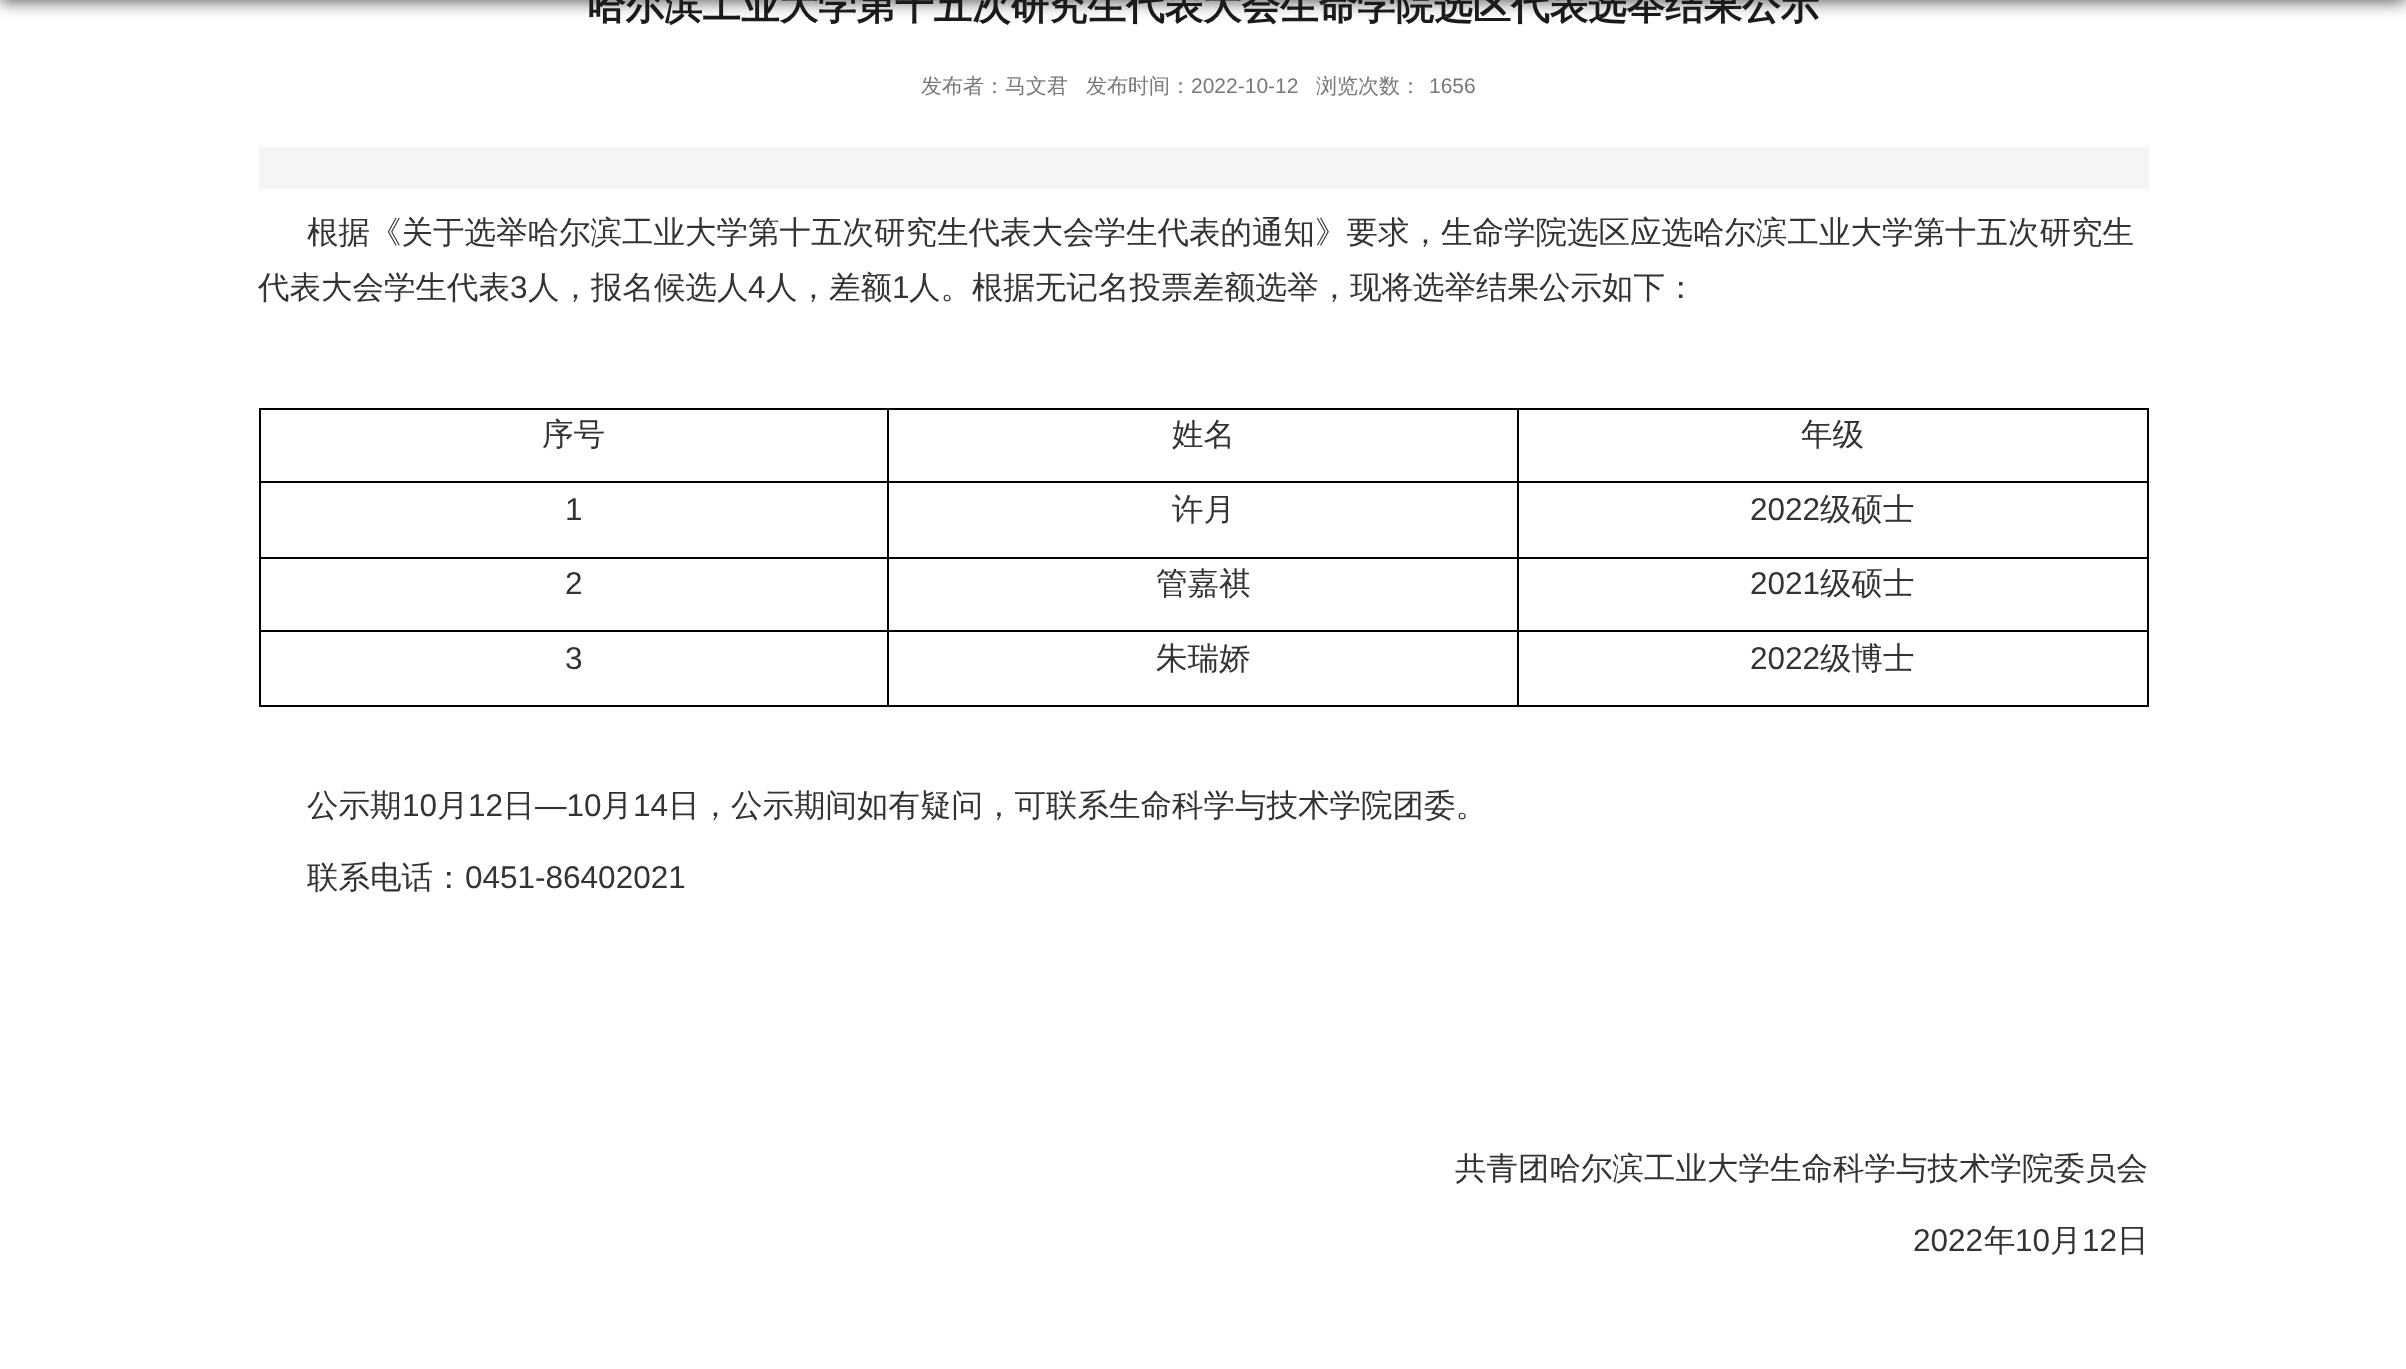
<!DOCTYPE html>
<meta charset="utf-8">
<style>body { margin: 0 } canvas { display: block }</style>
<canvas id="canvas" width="2406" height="1369"></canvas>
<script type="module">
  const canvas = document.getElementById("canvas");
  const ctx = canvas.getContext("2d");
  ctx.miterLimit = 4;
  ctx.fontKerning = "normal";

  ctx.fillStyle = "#ffffff";
  ctx.fillRect(0, 0, 2406, 1369);
  ctx.fillStyle = "rgba(0, 0, 0, 0.8)";
  ctx.filter = "blur(9px)";
  ctx.beginPath();
  ctx.rect(0, -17, 2406, 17);
  ctx.fill();
  ctx.filter = "none";
  ctx.font = "bold 38.5px WenQuanYi Zen Hei";
  ctx.fillStyle = "#1b1b1b";
  ctx.fillText("哈尔滨工业大学第十五次研究生代表大会生命学院选区代表选举结果公示", 587, 19);
  ctx.font = "500 21px WenQuanYi Zen Hei";
  ctx.fillStyle = "#787878";
  ctx.fillText("发布者：马文君", 921, 93);
  ctx.fillText("发布时间：", 1086, 93);
  ctx.font = "21px Liberation Sans";
  ctx.fillText("2022-10-12", 1191, 93);
  ctx.font = "500 21px WenQuanYi Zen Hei";
  ctx.fillText("浏览次数：", 1316, 93);
  ctx.font = "21px Liberation Sans";
  ctx.fillText("1656", 1429, 93);
  ctx.fillStyle = "#f5f5f5";
  ctx.fillRect(259, 147, 1890, 42);
  ctx.font = "500 31.5px WenQuanYi Zen Hei";
  ctx.fillStyle = "#333333";
  ctx.fillText("根据《关于选举哈尔滨工业大学第十五次研究生代表大会学生代表的通知》要求，生命学院选区应选哈尔滨工业大学第十五次研究生", 307, 243);
  ctx.fillText("代表大会学生代表", 258, 298);
  ctx.font = "31.5px Liberation Sans";
  ctx.fillText("3", 510, 298);
  ctx.font = "500 31.5px WenQuanYi Zen Hei";
  ctx.fillText("人，报名候选人", 528, 298);
  ctx.font = "31.5px Liberation Sans";
  ctx.fillText("4", 748, 298);
  ctx.font = "500 31.5px WenQuanYi Zen Hei";
  ctx.fillText("人，差额", 766, 298);
  ctx.font = "31.5px Liberation Sans";
  ctx.fillText("1", 892, 298);
  ctx.font = "500 31.5px WenQuanYi Zen Hei";
  ctx.fillText("人。根据无记名投票差额选举，现将选举结果公示如下：", 909, 298);
  ctx.fillStyle = "#000000";
  ctx.fillRect(259, 408, 1890, 2);
  ctx.fillRect(2147, 481, 2, 226);
  ctx.fillRect(2147, 408, 2, 75);
  ctx.fillRect(1517, 705, 632, 2);
  ctx.fillRect(1517, 630, 2, 77);
  ctx.fillRect(1517, 630, 632, 2);
  ctx.fillRect(1517, 557, 2, 75);
  ctx.fillRect(1517, 557, 632, 2);
  ctx.fillRect(1517, 481, 2, 77);
  ctx.fillRect(1517, 481, 632, 2);
  ctx.fillRect(1517, 408, 2, 75);
  ctx.fillRect(887, 705, 632, 2);
  ctx.fillRect(887, 630, 2, 77);
  ctx.fillRect(887, 630, 632, 2);
  ctx.fillRect(887, 557, 2, 75);
  ctx.fillRect(887, 557, 632, 2);
  ctx.fillRect(887, 481, 2, 77);
  ctx.fillRect(887, 481, 632, 2);
  ctx.fillRect(887, 408, 2, 75);
  ctx.fillRect(259, 705, 630, 2);
  ctx.fillRect(259, 630, 2, 77);
  ctx.fillRect(259, 630, 630, 2);
  ctx.fillRect(259, 557, 2, 75);
  ctx.fillRect(259, 557, 630, 2);
  ctx.fillRect(259, 481, 2, 77);
  ctx.fillRect(259, 481, 630, 2);
  ctx.fillRect(259, 408, 2, 75);
  ctx.fillStyle = "#333333";
  ctx.fillText("序号", 542, 445);
  ctx.fillText("姓名", 1172, 445);
  ctx.fillText("年级", 1801, 445);
  ctx.font = "31.5px Liberation Sans";
  ctx.fillText("1", 565, 520);
  ctx.font = "500 31.5px WenQuanYi Zen Hei";
  ctx.fillText("许月", 1172, 520);
  ctx.font = "31.5px Liberation Sans";
  ctx.fillText("2022", 1750, 520);
  ctx.font = "500 31.5px WenQuanYi Zen Hei";
  ctx.fillText("级硕士", 1820, 520);
  ctx.font = "31.5px Liberation Sans";
  ctx.fillText("2", 565, 594);
  ctx.font = "500 31.5px WenQuanYi Zen Hei";
  ctx.fillText("管嘉祺", 1156, 594);
  ctx.font = "31.5px Liberation Sans";
  ctx.fillText("2021", 1750, 594);
  ctx.font = "500 31.5px WenQuanYi Zen Hei";
  ctx.fillText("级硕士", 1820, 594);
  ctx.font = "31.5px Liberation Sans";
  ctx.fillText("3", 565, 669);
  ctx.font = "500 31.5px WenQuanYi Zen Hei";
  ctx.fillText("朱瑞娇", 1156, 669);
  ctx.font = "31.5px Liberation Sans";
  ctx.fillText("2022", 1750, 669);
  ctx.font = "500 31.5px WenQuanYi Zen Hei";
  ctx.fillText("级博士", 1820, 669);
  ctx.fillText("公示期", 307, 816);
  ctx.font = "31.5px Liberation Sans";
  ctx.fillText("10", 402, 816);
  ctx.font = "500 31.5px WenQuanYi Zen Hei";
  ctx.fillText("月", 437, 816);
  ctx.font = "31.5px Liberation Sans";
  ctx.fillText("12", 468, 816);
  ctx.font = "500 31.5px WenQuanYi Zen Hei";
  ctx.fillText("日", 503, 816);
  ctx.font = "31.5px Liberation Sans";
  ctx.fillText("—10", 535, 816);
  ctx.font = "500 31.5px WenQuanYi Zen Hei";
  ctx.fillText("月", 601, 816);
  ctx.font = "31.5px Liberation Sans";
  ctx.fillText("14", 633, 816);
  ctx.font = "500 31.5px WenQuanYi Zen Hei";
  ctx.fillText("日，公示期间如有疑问，可联系生命科学与技术学院团委。", 668, 816);
  ctx.fillText("联系电话：", 307, 888);
  ctx.font = "31.5px Liberation Sans";
  ctx.fillText("0451-86402021", 465, 888);
  ctx.font = "500 31.5px WenQuanYi Zen Hei";
  ctx.fillText("共青团哈尔滨工业大学生命科学与技术学院委员会", 1455, 1179);
  ctx.font = "31.5px Liberation Sans";
  ctx.fillText("2022", 1913, 1251);
  ctx.font = "500 31.5px WenQuanYi Zen Hei";
  ctx.fillText("年", 1984, 1251);
  ctx.font = "31.5px Liberation Sans";
  ctx.fillText("10", 2015, 1251);
  ctx.font = "500 31.5px WenQuanYi Zen Hei";
  ctx.fillText("月", 2050, 1251);
  ctx.font = "31.5px Liberation Sans";
  ctx.fillText("12", 2082, 1251);
  ctx.font = "500 31.5px WenQuanYi Zen Hei";
  ctx.fillText("日", 2117, 1251);
</script>
